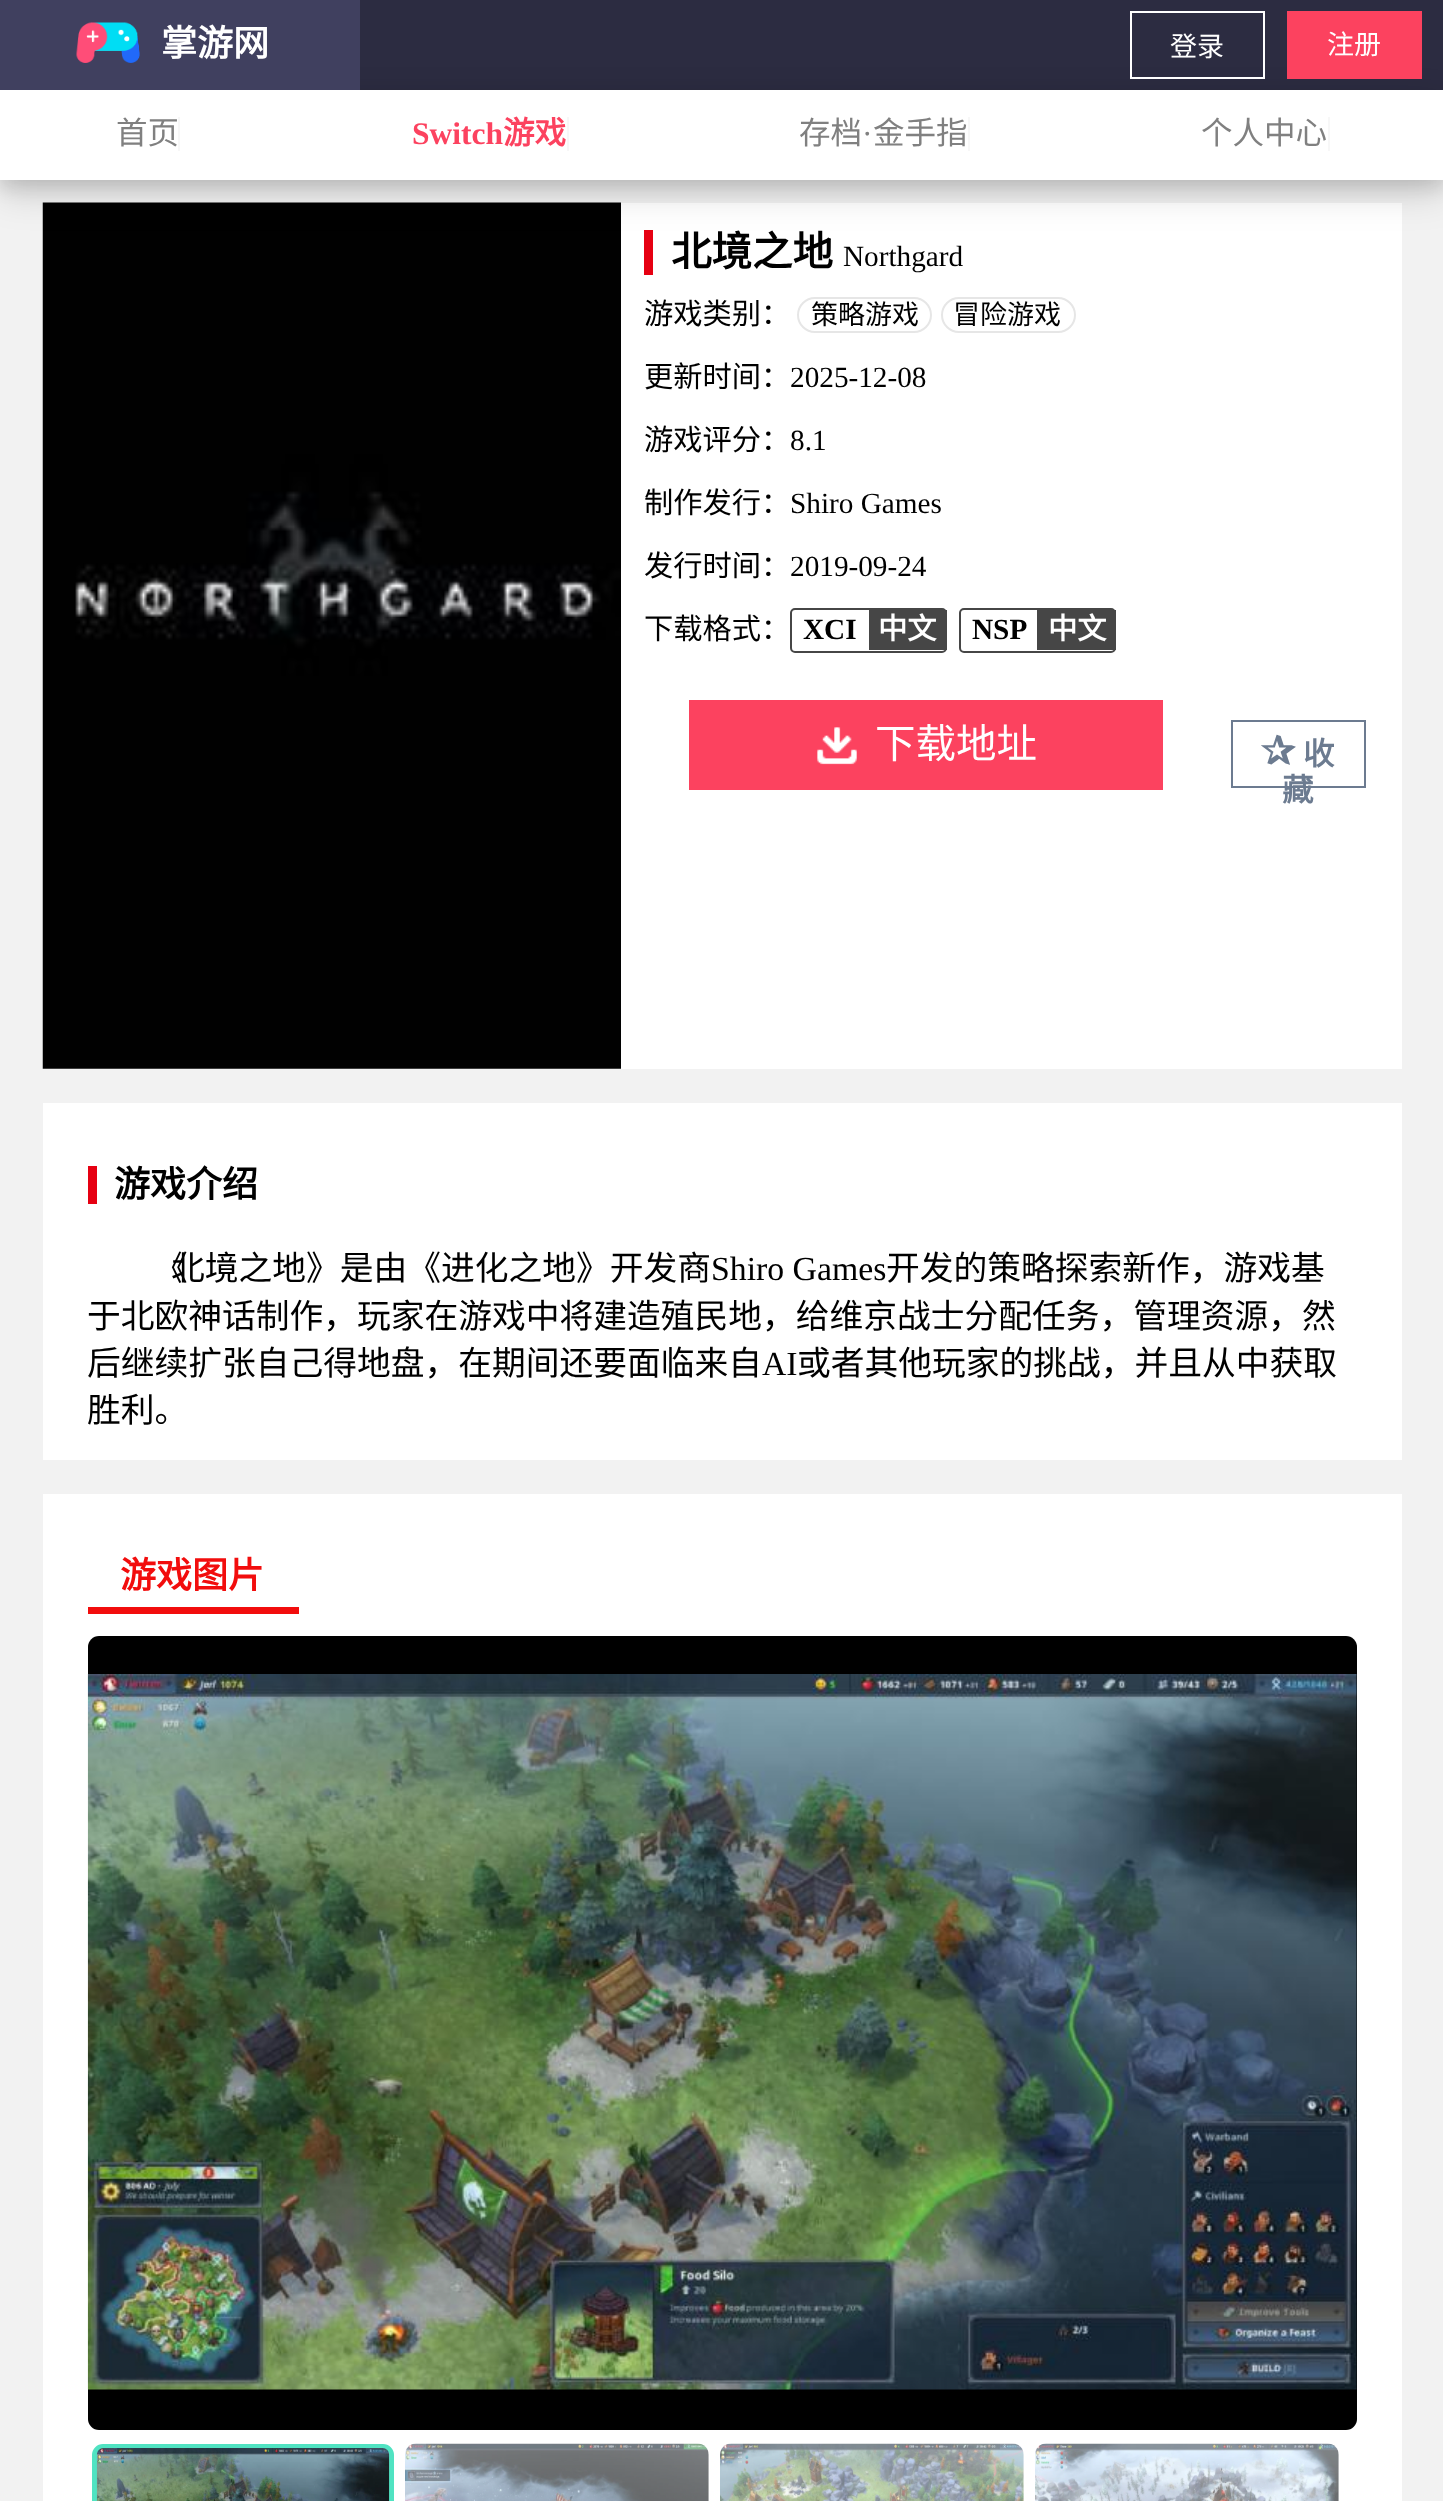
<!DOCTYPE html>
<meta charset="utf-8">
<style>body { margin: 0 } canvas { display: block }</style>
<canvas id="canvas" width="1443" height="2501"></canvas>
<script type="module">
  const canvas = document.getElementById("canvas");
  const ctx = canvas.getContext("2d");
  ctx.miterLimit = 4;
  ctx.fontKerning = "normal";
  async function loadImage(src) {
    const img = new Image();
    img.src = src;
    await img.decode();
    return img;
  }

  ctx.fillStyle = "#f2f2f2";
  ctx.fillRect(0, 0, 1443, 2501);
  ctx.fillStyle = "#2c2c41";
  ctx.fillRect(360, 0, 1083, 90);
  ctx.fillStyle = "#ffffff";
  ctx.fillRect(43, 203, 1359, 866);
  ctx.drawImage(await loadImage("img2.png"), 42, 202, 579, 867);
  ctx.fillStyle = "#e60012";
  ctx.fillRect(644, 230, 9, 45);
  ctx.fillStyle = "rgba(0, 0, 0, 0.15)";
  ctx.filter = "blur(18px)";
  ctx.beginPath();
  ctx.rect(0, 104, 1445, 90);
  ctx.fill();
  ctx.filter = "none";
  ctx.fillStyle = "rgba(0, 0, 0, 0.12)";
  ctx.filter = "blur(9px)";
  ctx.beginPath();
  ctx.rect(0, 97, 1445, 90);
  ctx.fill();
  ctx.filter = "none";
  ctx.fillStyle = "#40405f";
  ctx.fillRect(0, 0, 360, 90);
  ctx.drawImage(await loadImage("img1.png"), 76, 22, 64, 41);
  ctx.font = "bold 36px Noto Sans CJK SC";
  ctx.fillStyle = "#ffffff";
  ctx.fillText("掌游网", 161, 56);
  ctx.strokeStyle = "#ffffff";
  ctx.lineWidth = 2;
  ctx.strokeRect(1131, 12, 133, 66);
  ctx.font = "27px Noto Sans CJK SC";
  ctx.fillText("登录", 1170, 56);
  ctx.fillStyle = "#fc425f";
  ctx.fillRect(1287, 11, 135, 68);
  ctx.fillStyle = "#ffffff";
  ctx.fillText("注册", 1327, 54);
  ctx.fillRect(0, 90, 1443, 90);
  ctx.font = "31.5px Noto Sans CJK SC";
  ctx.fillStyle = "#808080";
  ctx.fillText("首页", 116, 144);
  ctx.fillStyle = "#f7f7f7";
  ctx.fillRect(178, 117, 2, 34);
  ctx.font = "bold 31.5px Liberation Serif";
  ctx.fillStyle = "#fc425f";
  ctx.fillText("Switch", 412, 144);
  ctx.font = "bold 31.5px Noto Sans CJK SC";
  ctx.fillText("游戏", 503, 144);
  ctx.fillStyle = "#f7f7f7";
  ctx.fillRect(567, 117, 2, 34);
  ctx.font = "31.5px Noto Sans CJK SC";
  ctx.fillStyle = "#808080";
  ctx.fillText("存档", 799, 144);
  ctx.font = "31.5px Liberation Serif";
  ctx.fillText("·", 862, 144);
  ctx.font = "31.5px Noto Sans CJK SC";
  ctx.fillText("金手指", 873, 144);
  ctx.fillStyle = "#f7f7f7";
  ctx.fillRect(968, 117, 2, 34);
  ctx.fillStyle = "#808080";
  ctx.fillText("个人中心", 1201, 144);
  ctx.fillStyle = "#f7f7f7";
  ctx.fillRect(1328, 117, 2, 34);
  ctx.font = "bold 40.5px Noto Sans CJK SC";
  ctx.fillStyle = "#000000";
  ctx.fillText("北境之地", 671, 266);
  ctx.font = "29.25px Liberation Serif";
  ctx.fillText("Northgard", 843, 266);
  ctx.font = "29.25px Noto Sans CJK SC";
  ctx.fillText("游戏类别：", 644, 324);
  ctx.beginPath();
  ctx.roundRect(798, 298, 133, 34, 17);
  ctx.strokeStyle = "#e6e6e6";
  ctx.stroke();
  ctx.font = "27px Noto Sans CJK SC";
  ctx.fillText("策略游戏", 811, 324);
  ctx.beginPath();
  ctx.roundRect(942, 298, 133, 34, 17);
  ctx.stroke();
  ctx.fillText("冒险游戏", 953, 324);
  ctx.font = "29.25px Noto Sans CJK SC";
  ctx.fillText("更新时间：", 644, 387);
  ctx.font = "29.25px Liberation Serif";
  ctx.fillText("2025-12-08", 790, 387);
  ctx.font = "29.25px Noto Sans CJK SC";
  ctx.fillText("游戏评分：", 644, 450);
  ctx.font = "29.25px Liberation Serif";
  ctx.fillText("8.1", 790, 450);
  ctx.font = "29.25px Noto Sans CJK SC";
  ctx.fillText("制作发行：", 644, 513);
  ctx.font = "29.25px Liberation Serif";
  ctx.fillText("Shiro Games", 790, 513);
  ctx.font = "29.25px Noto Sans CJK SC";
  ctx.fillText("发行时间：", 644, 576);
  ctx.font = "29.25px Liberation Serif";
  ctx.fillText("2019-09-24", 790, 576);
  ctx.font = "29.25px Noto Sans CJK SC";
  ctx.fillText("下载格式：", 644, 639);
  ctx.beginPath();
  ctx.roundRect(791, 609, 155, 43, 4);
  ctx.strokeStyle = "#464646";
  ctx.stroke();
  ctx.font = "bold 29.25px Liberation Serif";
  ctx.fillText("XCI", 803, 639);
  ctx.fillStyle = "#464646";
  ctx.fillRect(869, 610, 78, 40);
  ctx.font = "bold 29.25px Noto Sans CJK SC";
  ctx.fillStyle = "#ffffff";
  ctx.fillText("中文", 878, 639);
  ctx.beginPath();
  ctx.roundRect(960, 609, 155, 43, 4);
  ctx.stroke();
  ctx.font = "bold 29.25px Liberation Serif";
  ctx.fillStyle = "#000000";
  ctx.fillText("NSP", 972, 639);
  ctx.fillStyle = "#464646";
  ctx.fillRect(1037, 610, 79, 40);
  ctx.font = "bold 29.25px Noto Sans CJK SC";
  ctx.fillStyle = "#ffffff";
  ctx.fillText("中文", 1048, 639);
  ctx.fillStyle = "#fc425f";
  ctx.fillRect(689, 700, 474, 90);
  ctx.drawImage(await loadImage("img3.png"), 817, 727, 40, 38);
  ctx.font = "40.5px Noto Sans CJK SC";
  ctx.fillStyle = "#ffffff";
  ctx.fillText("下载地址", 875, 758);
  ctx.strokeStyle = "#6c7b90";
  ctx.strokeRect(1232, 721, 133, 66);
  ctx.font = "bold 40.5px DejaVu Sans";
  ctx.fillStyle = "#6c7b90";
  ctx.fillText("✰", 1261, 765);
  ctx.font = "bold 31.5px Noto Sans CJK SC";
  ctx.fillText("收", 1303, 765);
  ctx.fillText("藏", 1282, 801);
  ctx.fillStyle = "#ffffff";
  ctx.fillRect(43, 1103, 1359, 357);
  ctx.fillStyle = "#e60012";
  ctx.fillRect(88, 1166, 9, 38);
  ctx.font = "bold 36px Noto Sans CJK SC";
  ctx.fillStyle = "#000000";
  ctx.fillText("游戏介绍", 114, 1197);
  ctx.font = "33.75px Noto Sans CJK SC";
  ctx.fillText("《", 154, 1280);
  ctx.fillText("北境之地》是由《进化之地》开发商", 171, 1280);
  ctx.font = "33.75px Liberation Serif";
  ctx.fillText("Shiro Games", 711, 1280);
  ctx.font = "33.75px Noto Sans CJK SC";
  ctx.fillText("开发的策略探索新作，游戏基", 886, 1280);
  ctx.fillText("于北欧神话制作，玩家在游戏中将建造殖民地，给维京战士分配任务，管理资源，然", 87, 1328);
  ctx.fillText("后继续扩张自己得地盘，在期间还要面临来自", 87, 1375);
  ctx.font = "33.75px Liberation Serif";
  ctx.fillText("AI", 762, 1375);
  ctx.font = "33.75px Noto Sans CJK SC";
  ctx.fillText("或者其他玩家的挑战，并且从中获取", 797, 1375);
  ctx.fillText("胜利。", 87, 1422);
  ctx.fillStyle = "#ffffff";
  ctx.fillRect(43, 1494, 1359, 1007);
  ctx.fillStyle = "#f20d0d";
  ctx.fillRect(88, 1607, 211, 7);
  ctx.font = "bold 36px Noto Sans CJK SC";
  ctx.fillText("游戏图片", 120, 1588);
  ctx.fillStyle = "#000000";
  ctx.beginPath();
  ctx.roundRect(88, 1636, 1269, 794, 11);
  ctx.fill();
  ctx.drawImage(await loadImage("img4.png"), 87, 1674, 1270, 716);
  ctx.beginPath();
  ctx.roundRect(94.5, 2446.5, 297, 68, 8.5);
  ctx.strokeStyle = "#50e3c2";
  ctx.lineWidth = 5;
  ctx.stroke();
  ctx.drawImage(await loadImage("img5.png"), 96, 2448, 294, 53);
  ctx.drawImage(await loadImage("img6.png"), 405, 2443, 304, 58);
  ctx.drawImage(await loadImage("img7.png"), 720, 2443, 304, 58);
  ctx.drawImage(await loadImage("img8.png"), 1035, 2443, 304, 58);
</script>
